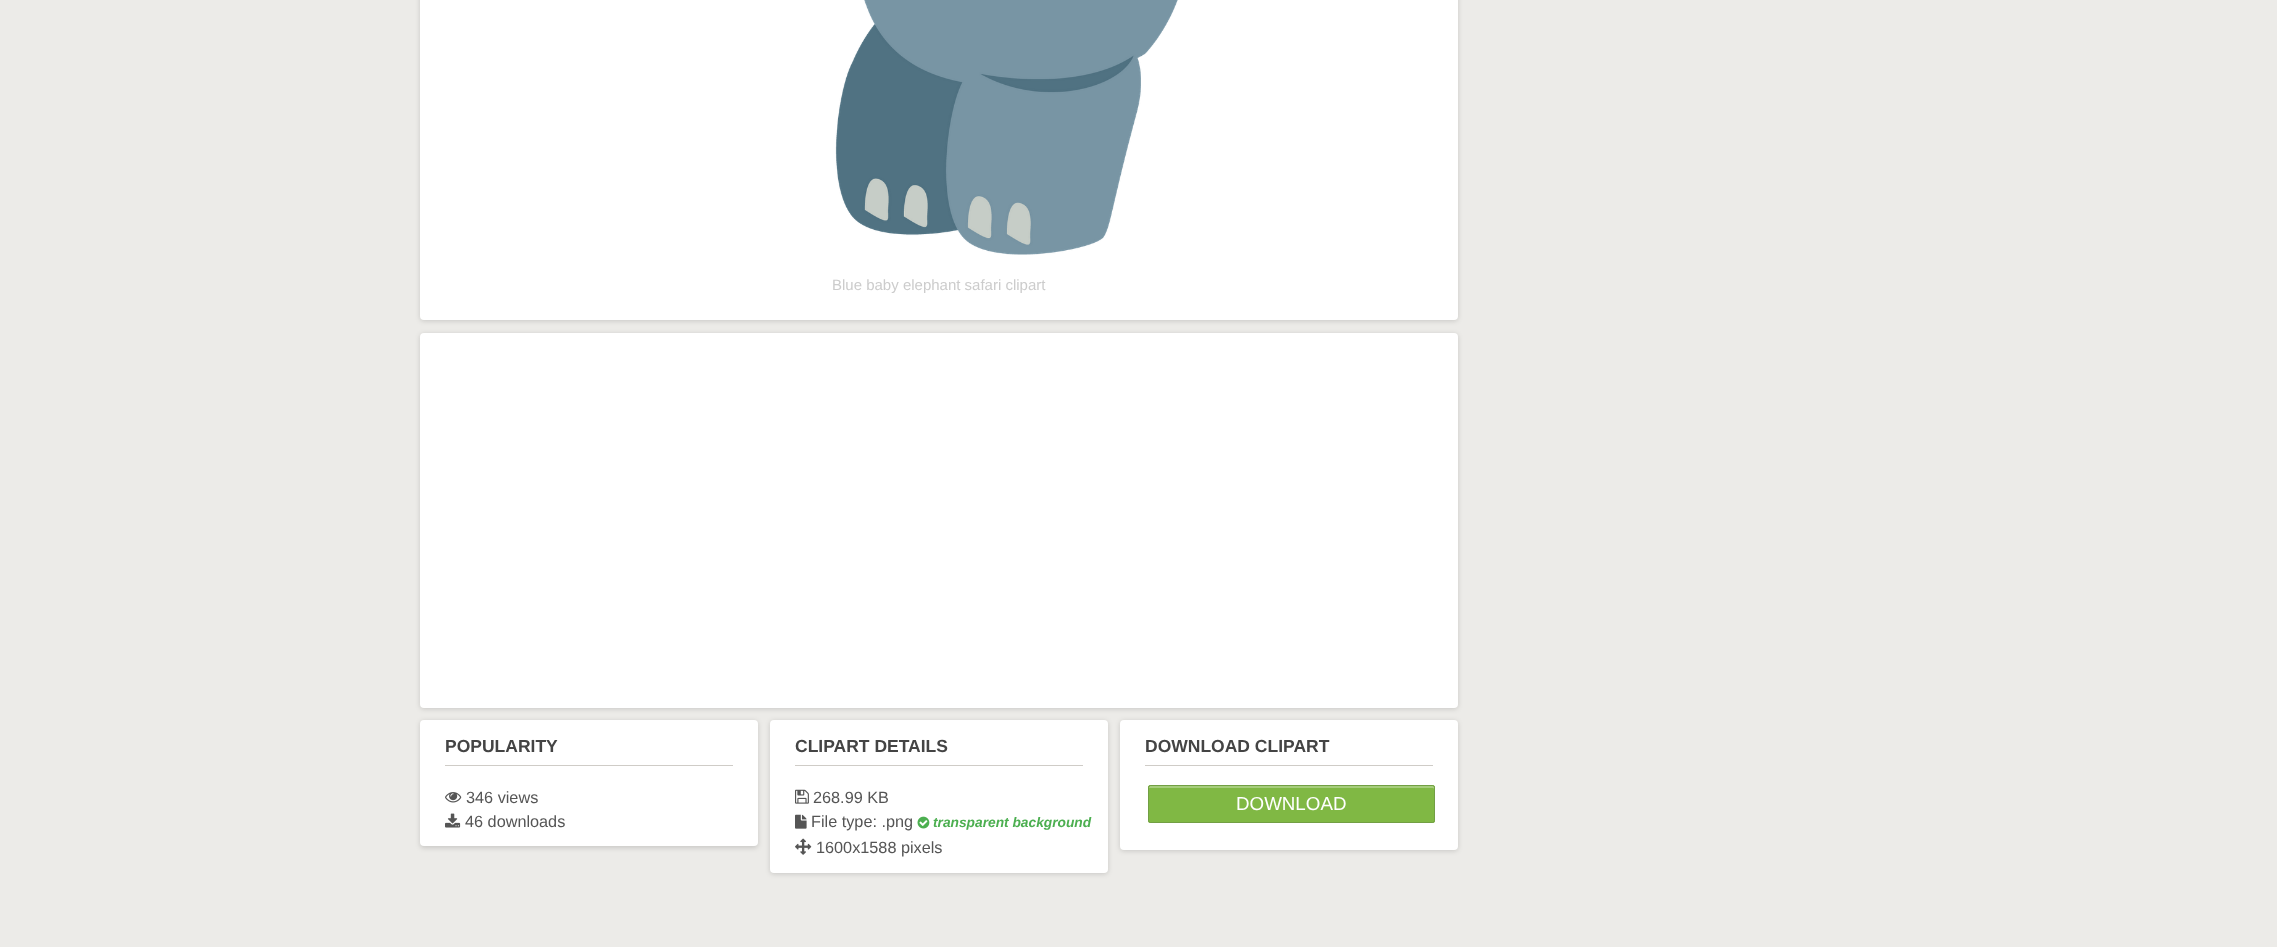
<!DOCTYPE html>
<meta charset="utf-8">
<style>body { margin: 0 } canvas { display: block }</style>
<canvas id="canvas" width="2277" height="947"></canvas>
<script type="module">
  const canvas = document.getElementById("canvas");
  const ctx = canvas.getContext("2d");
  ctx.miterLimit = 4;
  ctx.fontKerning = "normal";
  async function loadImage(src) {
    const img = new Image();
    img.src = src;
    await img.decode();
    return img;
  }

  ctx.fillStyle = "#ecebe8";
  ctx.fillRect(0, 0, 2277, 947);
  ctx.fillStyle = "rgba(0, 0, 0, 0.15)";
  ctx.filter = "blur(2.5px)";
  ctx.beginPath();
  ctx.roundRect(420, -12, 1038, 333, 4);
  ctx.fill();
  ctx.filter = "none";
  ctx.fillStyle = "#ffffff";
  ctx.beginPath();
  ctx.roundRect(420, -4, 1038, 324, 4);
  ctx.fill();
  ctx.drawImage(await loadImage("img1.png"), 835, 0, 343, 255);
  ctx.font = "15px Liberation Sans";
  ctx.fillStyle = "#cccccc";
  ctx.fillText("Blue baby elephant safari clipart", 832, 290);
  ctx.fillStyle = "rgba(0, 0, 0, 0.15)";
  ctx.filter = "blur(2.5px)";
  ctx.beginPath();
  ctx.roundRect(420, 334, 1038, 375, 4);
  ctx.fill();
  ctx.filter = "none";
  ctx.fillStyle = "#ffffff";
  ctx.beginPath();
  ctx.roundRect(420, 333, 1038, 375, 4);
  ctx.fill();
  ctx.fillStyle = "rgba(0, 0, 0, 0.15)";
  ctx.filter = "blur(2.5px)";
  ctx.beginPath();
  ctx.roundRect(420, 721, 338, 127, 4);
  ctx.fill();
  ctx.filter = "none";
  ctx.fillStyle = "#ffffff";
  ctx.beginPath();
  ctx.roundRect(420, 720, 338, 126, 4);
  ctx.fill();
  ctx.fillStyle = "#cfccc7";
  ctx.fillRect(445, 765, 288, 1);
  ctx.font = "bold 17.5px Liberation Sans";
  ctx.fillStyle = "#444444";
  ctx.fillText("POPULARITY", 445, 752);
  ctx.drawImage(await loadImage("img2.png"), 445, 792, 17, 11);
  ctx.font = "16.25px Liberation Sans";
  ctx.fillStyle = "#555555";
  ctx.fillText("346 views", 466, 803);
  ctx.drawImage(await loadImage("img3.png"), 445, 813, 16, 15);
  ctx.fillText("46 downloads", 465, 827);
  ctx.fillStyle = "rgba(0, 0, 0, 0.15)";
  ctx.filter = "blur(2.5px)";
  ctx.beginPath();
  ctx.roundRect(770, 721, 338, 153, 4);
  ctx.fill();
  ctx.filter = "none";
  ctx.fillStyle = "#ffffff";
  ctx.beginPath();
  ctx.roundRect(770, 720, 338, 153, 4);
  ctx.fill();
  ctx.fillStyle = "#cfccc7";
  ctx.fillRect(795, 765, 288, 1);
  ctx.font = "bold 17.5px Liberation Sans";
  ctx.fillStyle = "#444444";
  ctx.fillText("CLIPART DETAILS", 795, 752);
  ctx.drawImage(await loadImage("img4.png"), 795, 789, 14, 15);
  ctx.font = "16.25px Liberation Sans";
  ctx.fillStyle = "#555555";
  ctx.fillText("268.99 KB", 813, 803);
  ctx.drawImage(await loadImage("img5.png"), 795, 814, 12, 15);
  ctx.fillText("File type: .png", 811, 827);
  ctx.drawImage(await loadImage("img6.png"), 917, 816, 13, 13);
  ctx.font = "italic bold 13.75px Liberation Sans";
  ctx.fillStyle = "#4caf50";
  ctx.fillText("transparent background", 933, 827);
  ctx.drawImage(await loadImage("img7.png"), 795, 838, 17, 17);
  ctx.font = "16.25px Liberation Sans";
  ctx.fillStyle = "#555555";
  ctx.fillText("1600x1588 pixels", 816, 853);
  ctx.fillStyle = "rgba(0, 0, 0, 0.15)";
  ctx.filter = "blur(2.5px)";
  ctx.beginPath();
  ctx.roundRect(1120, 721, 338, 130, 4);
  ctx.fill();
  ctx.filter = "none";
  ctx.fillStyle = "#ffffff";
  ctx.beginPath();
  ctx.roundRect(1120, 720, 338, 130, 4);
  ctx.fill();
  ctx.fillStyle = "#cfccc7";
  ctx.fillRect(1145, 765, 288, 1);
  ctx.font = "bold 17.5px Liberation Sans";
  ctx.fillStyle = "#444444";
  ctx.fillText("DOWNLOAD CLIPART", 1145, 752);
  ctx.fillStyle = "#80b844";
  ctx.beginPath();
  ctx.roundRect(1148, 785, 287, 38, 2.5);
  ctx.fill();
  ctx.fillStyle = "#a6cd7c";
  ctx.beginPath();
  ctx.moveTo(1150, 788);
  ctx.lineTo(1432, 788);
  ctx.bezierCurveTo(1433, 788, 1434, 788, 1434, 789);
  ctx.lineTo(1434, 786);
  ctx.lineTo(1150, 786);
  ctx.bezierCurveTo(1149, 786, 1149, 788, 1149, 789);
  ctx.bezierCurveTo(1149, 788, 1149, 788, 1150, 788);
  ctx.closePath();
  ctx.fill();
  ctx.beginPath();
  ctx.roundRect(1148.5, 785.5, 286, 37, 2);
  ctx.strokeStyle = "#729f44";
  ctx.stroke();
  ctx.font = "18.75px Liberation Sans";
  ctx.fillStyle = "#ffffff";
  ctx.fillText("DOWNLOAD", 1236, 810);
</script>
